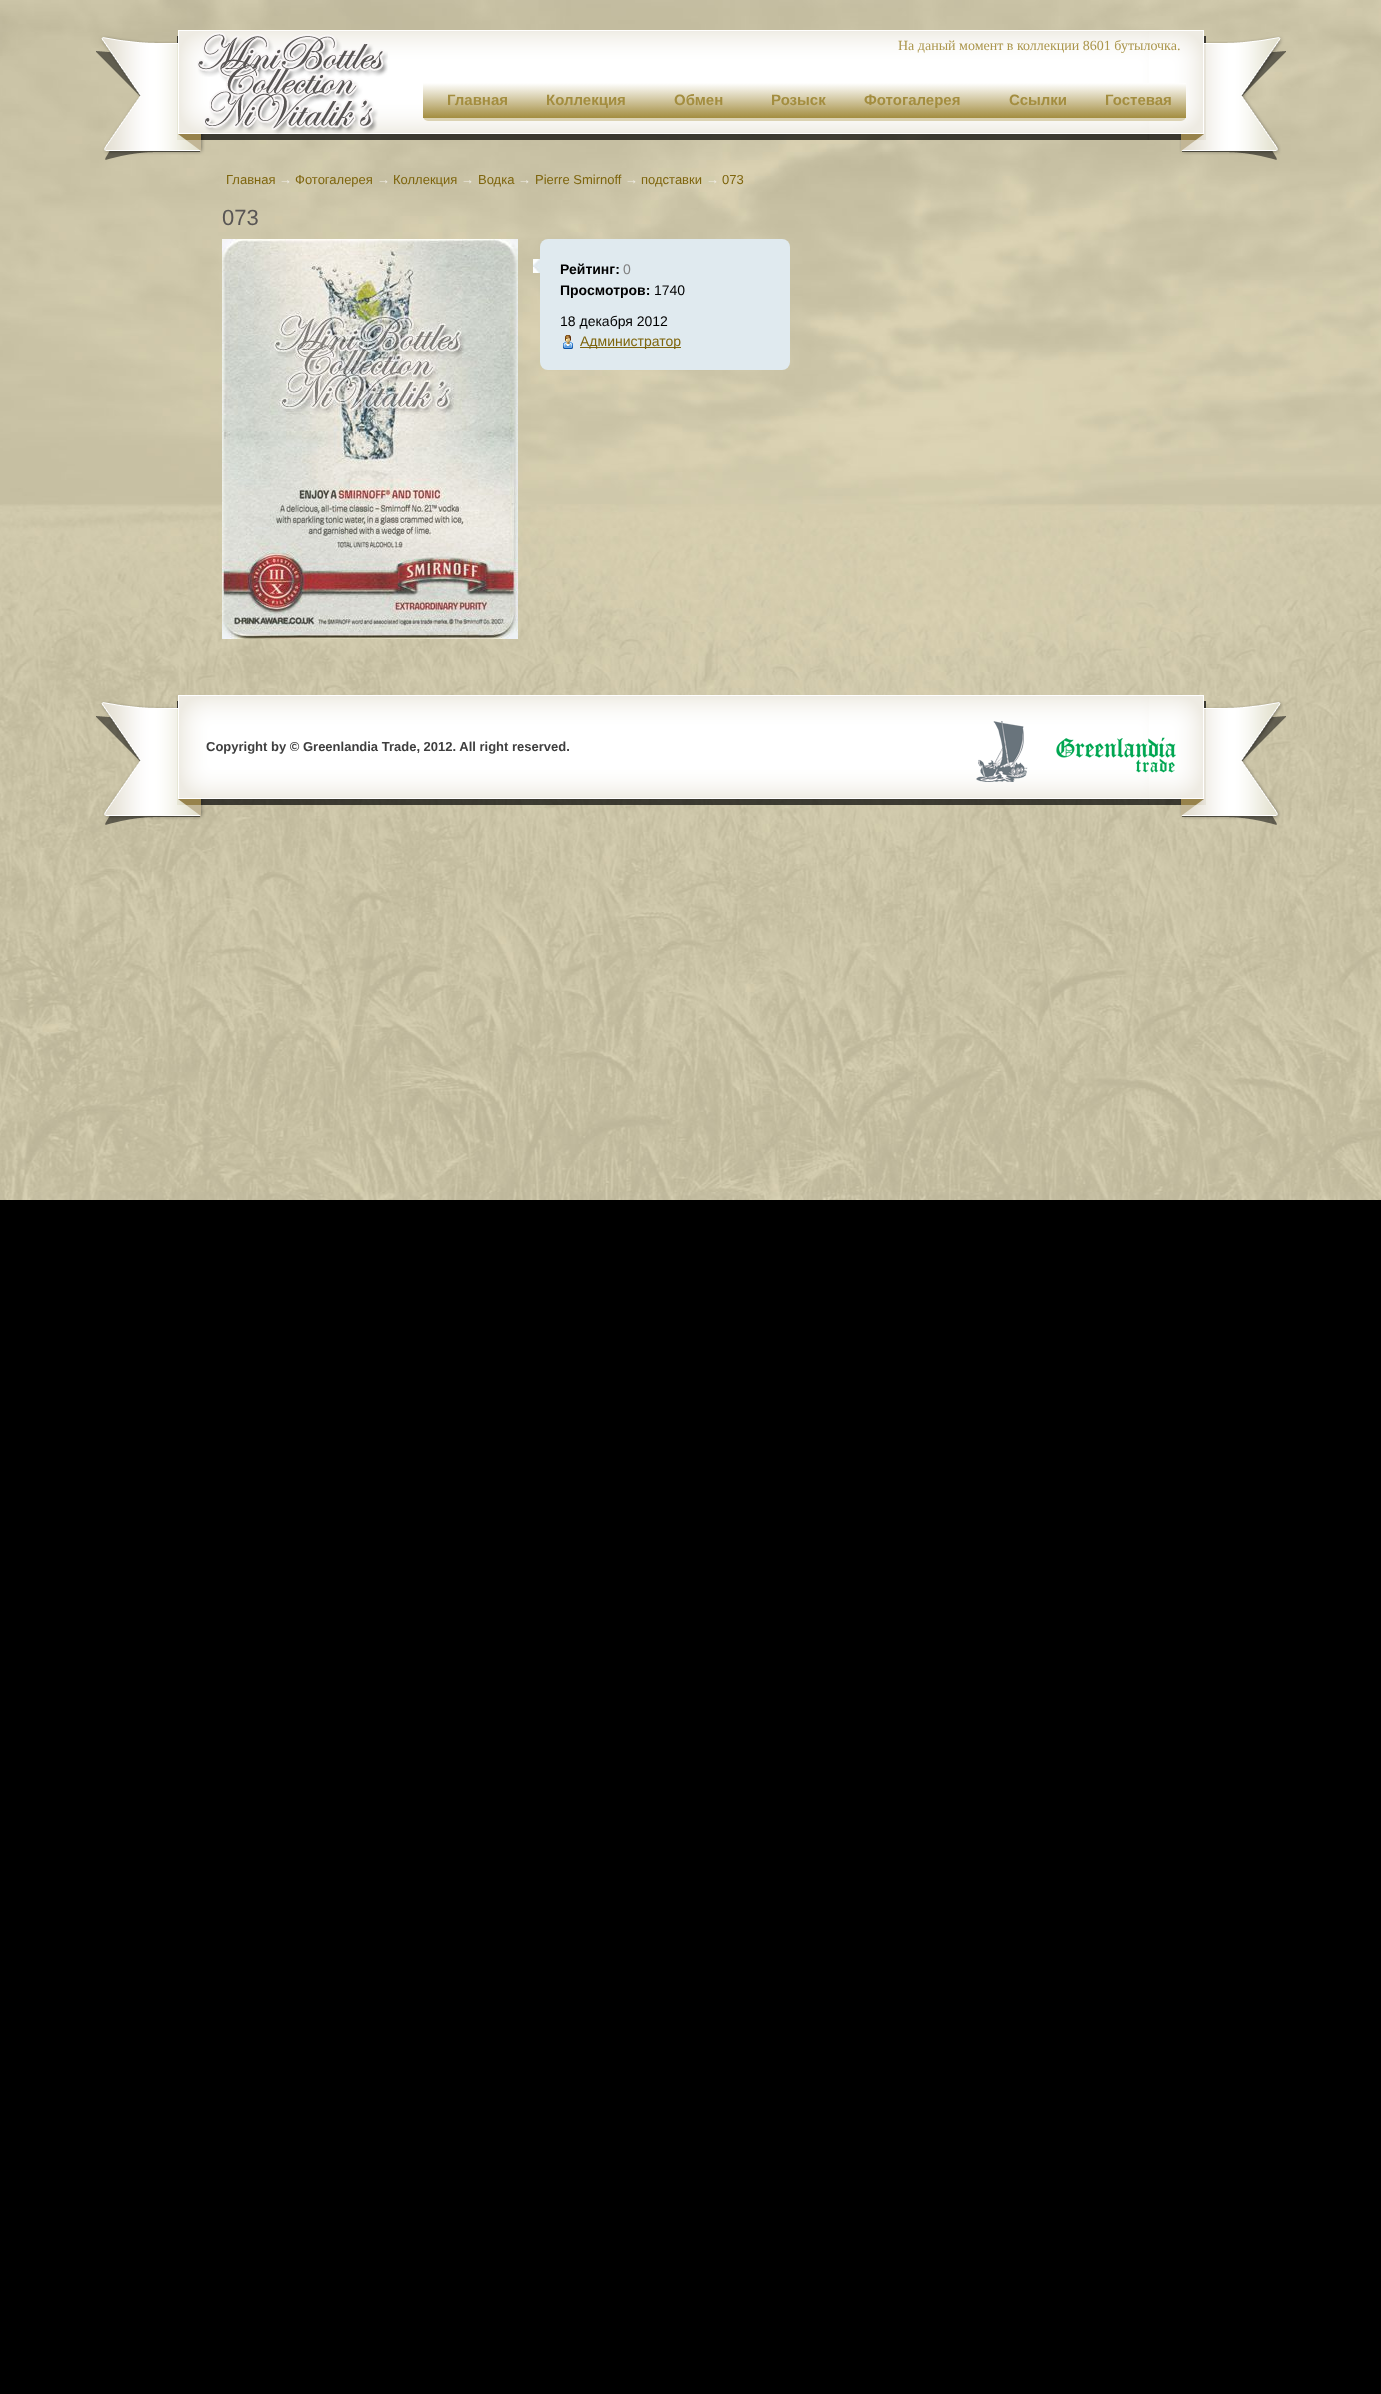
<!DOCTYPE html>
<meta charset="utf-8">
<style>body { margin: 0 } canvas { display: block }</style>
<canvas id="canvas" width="1381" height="2394"></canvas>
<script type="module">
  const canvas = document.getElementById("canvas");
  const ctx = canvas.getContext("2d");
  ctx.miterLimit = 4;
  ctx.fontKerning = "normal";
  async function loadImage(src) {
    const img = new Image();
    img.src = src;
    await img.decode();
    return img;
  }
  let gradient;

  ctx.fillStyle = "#000000";
  ctx.fillRect(0, 0, 1381, 2394);
  ctx.drawImage(await loadImage("img1.png"), 0, 0, 1381, 1200);
  ctx.drawImage(await loadImage("img2.png"), 96, 30, 1190, 130);
  ctx.drawImage(await loadImage("img3.png"), 197, 32, 191, 102);
  ctx.font = "14px Liberation Serif";
  ctx.fillStyle = "#ab964c";
  ctx.fillText("На даный момент в коллекции 8601 бутылочка.", 898, 50);
  ctx.fillStyle = "#dbd2b2";
  ctx.beginPath();
  ctx.roundRect(423, 83, 763, 38, 5);
  ctx.fill();
  gradient = ctx.createLinearGradient(473, 83, 473, 118);
  gradient.addColorStop(0, "#ffffff");
  gradient.addColorStop(1, "#a38d3f");
  ctx.fillStyle = gradient;
  ctx.fillRect(423, 83, 99, 35);
  ctx.font = "bold 15px Liberation Sans";
  ctx.fillStyle = "#a38d3f";
  ctx.fillText("Главная", 447, 105);
  gradient = ctx.createLinearGradient(586, 83, 586, 118);
  gradient.addColorStop(0, "#ffffff");
  gradient.addColorStop(1, "#a38d3f");
  ctx.fillStyle = gradient;
  ctx.fillRect(522, 83, 128, 35);
  ctx.fillStyle = "#a38d3f";
  ctx.fillText("Коллекция", 546, 105);
  gradient = ctx.createLinearGradient(699, 83, 699, 118);
  gradient.addColorStop(0, "#ffffff");
  gradient.addColorStop(1, "#a38d3f");
  ctx.fillStyle = gradient;
  ctx.fillRect(650, 83, 97, 35);
  ctx.fillStyle = "#a38d3f";
  ctx.fillText("Обмен", 674, 105);
  gradient = ctx.createLinearGradient(794, 83, 794, 118);
  gradient.addColorStop(0, "#ffffff");
  gradient.addColorStop(1, "#a38d3f");
  ctx.fillStyle = gradient;
  ctx.fillRect(747, 83, 93, 35);
  ctx.fillStyle = "#a38d3f";
  ctx.fillText("Розыск", 771, 105);
  gradient = ctx.createLinearGradient(913, 83, 913, 118);
  gradient.addColorStop(0, "#ffffff");
  gradient.addColorStop(1, "#a38d3f");
  ctx.fillStyle = gradient;
  ctx.fillRect(840, 83, 145, 35);
  ctx.fillStyle = "#a38d3f";
  ctx.fillText("Фотогалерея", 864, 105);
  gradient = ctx.createLinearGradient(1033, 83, 1033, 118);
  gradient.addColorStop(0, "#ffffff");
  gradient.addColorStop(1, "#a38d3f");
  ctx.fillStyle = gradient;
  ctx.fillRect(985, 83, 96, 35);
  ctx.fillStyle = "#a38d3f";
  ctx.fillText("Ссылки", 1009, 105);
  gradient = ctx.createLinearGradient(1134, 83, 1134, 118);
  gradient.addColorStop(0, "#ffffff");
  gradient.addColorStop(1, "#a38d3f");
  ctx.fillStyle = gradient;
  ctx.fillRect(1081, 83, 105, 35);
  ctx.fillStyle = "#a38d3f";
  ctx.fillText("Гостевая", 1105, 105);
  ctx.font = "13px Liberation Sans";
  ctx.fillStyle = "#7e650d";
  ctx.fillText("Главная", 226, 184);
  ctx.fillStyle = "#f0eee7";
  ctx.fillText("→", 279, 184);
  ctx.fillStyle = "#7e650d";
  ctx.fillText("Фотогалерея", 295, 184);
  ctx.fillStyle = "#f0eee7";
  ctx.fillText("→", 377, 184);
  ctx.fillStyle = "#7e650d";
  ctx.fillText("Коллекция", 393, 184);
  ctx.fillStyle = "#f0eee7";
  ctx.fillText("→", 461, 184);
  ctx.fillStyle = "#7e650d";
  ctx.fillText("Водка", 478, 184);
  ctx.fillStyle = "#f0eee7";
  ctx.fillText("→", 518, 184);
  ctx.fillStyle = "#7e650d";
  ctx.fillText("Pierre Smirnoff", 535, 184);
  ctx.fillStyle = "#f0eee7";
  ctx.fillText("→", 625, 184);
  ctx.fillStyle = "#7e650d";
  ctx.fillText("подставки", 641, 184);
  ctx.fillStyle = "#f0eee7";
  ctx.fillText("→", 706, 184);
  ctx.fillStyle = "#7e650d";
  ctx.fillText("073", 722, 184);
  ctx.font = "22px Liberation Sans";
  ctx.fillStyle = "#585554";
  ctx.fillText("073", 222, 225);
  ctx.drawImage(await loadImage("img4.png"), 222, 239, 296, 400);
  ctx.drawImage(await loadImage("img5.png"), 533, 259, 7, 14);
  ctx.fillStyle = "#e0eaef";
  ctx.beginPath();
  ctx.roundRect(540, 239, 250, 131, 8);
  ctx.fill();
  ctx.font = "bold 14px Liberation Sans";
  ctx.fillStyle = "#000000";
  ctx.fillText("Рейтинг:", 560, 274);
  ctx.font = "14px Liberation Sans";
  ctx.fillStyle = "#808080";
  ctx.fillText("0", 623, 274);
  ctx.font = "bold 14px Liberation Sans";
  ctx.fillStyle = "#000000";
  ctx.fillText("Просмотров:", 560, 295);
  ctx.font = "14px Liberation Sans";
  ctx.fillText("1740", 654, 295);
  ctx.fillText("18 декабря 2012", 560, 326);
  ctx.drawImage(await loadImage("img6.png"), 563, 335, 10, 14);
  ctx.fillStyle = "#7e650d";
  ctx.fillRect(580, 347, 101, 1);
  ctx.fillText("Администратор", 580, 346);
  ctx.drawImage(await loadImage("img7.png"), 96, 695, 1190, 130);
  ctx.font = "bold 13px Liberation Sans";
  ctx.fillStyle = "#3e3e3e";
  ctx.fillText("Copyright by © Greenlandia Trade, 2012. All right reserved.", 206, 751);
  ctx.drawImage(await loadImage("img8.png"), 976, 721, 200, 61);
</script>
